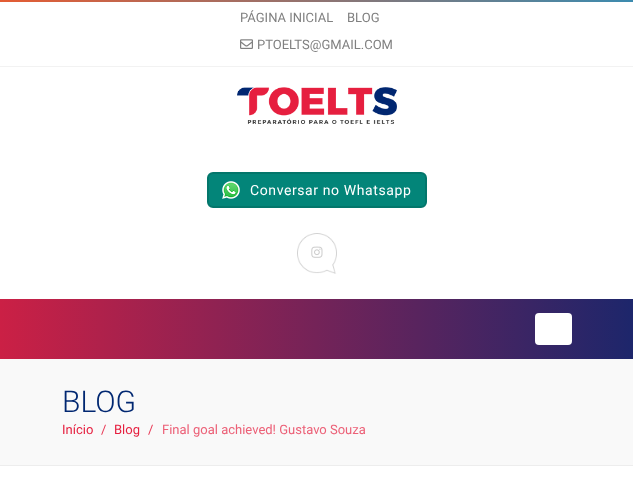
<!DOCTYPE html>
<meta charset="utf-8">
<style>body { margin: 0 } canvas { display: block }</style>
<canvas id="canvas" width="633" height="490"></canvas>
<script type="module">
  const canvas = document.getElementById("canvas");
  const ctx = canvas.getContext("2d");
  ctx.miterLimit = 4;
  ctx.fontKerning = "normal";
  async function loadImage(src) {
    const img = new Image();
    img.src = src;
    await img.decode();
    return img;
  }
  let gradient;

  ctx.fillStyle = "#ffffff";
  ctx.fillRect(0, 0, 633, 490);
  ctx.fillStyle = "#f2f2f2";
  ctx.fillRect(0, 66, 633, 1);
  gradient = ctx.createLinearGradient(0, 1, 633, 1);
  gradient.addColorStop(0, "#e45c33");
  gradient.addColorStop(1, "#3c8baf");
  ctx.fillStyle = gradient;
  ctx.fillRect(0, 0, 633, 2);
  ctx.font = "13px Roboto";
  ctx.fillStyle = "#808080";
  ctx.fillText("PÁGINA INICIAL", 240, 22);
  ctx.fillText("BLOG", 347, 22);
  ctx.drawImage(await loadImage("img1.png"), 240, 39, 13, 10);
  ctx.fillText("PTOELTS@GMAIL.COM", 257, 49);
  ctx.drawImage(await loadImage("img2.png"), 237, 87, 160, 37);
  ctx.fillStyle = "#038579";
  ctx.beginPath();
  ctx.roundRect(208, 173, 218, 34, 5);
  ctx.fill();
  ctx.strokeStyle = "#03766b";
  ctx.lineWidth = 2;
  ctx.stroke();
  ctx.drawImage(await loadImage("img3.png"), 222, 181, 18, 18);
  ctx.letterSpacing = "0.6px";
  ctx.font = "14px Roboto";
  ctx.fillStyle = "#ffffff";
  ctx.fillText("Conversar no Whatsapp", 250, 195);
  ctx.drawImage(await loadImage("img4.png"), 297, 233, 40, 41);
  ctx.drawImage(await loadImage("img5.png"), 311, 246, 12, 12);
  gradient = ctx.createLinearGradient(0, 329, 633, 329);
  gradient.addColorStop(0, "#cb2045");
  gradient.addColorStop(1, "#1d266b");
  ctx.fillStyle = gradient;
  ctx.fillRect(0, 299, 633, 60);
  ctx.fillStyle = "#ffffff";
  ctx.beginPath();
  ctx.roundRect(535, 313, 37, 32, 4);
  ctx.fill();
  ctx.fillStyle = "#f9f9f9";
  ctx.fillRect(0, 359, 633, 106);
  ctx.fillStyle = "#ededed";
  ctx.fillRect(0, 465, 633, 1);
  ctx.letterSpacing = "0px";
  ctx.font = "300 30px Roboto";
  ctx.fillStyle = "#012771";
  ctx.fillText("BLOG", 62, 412);
  ctx.font = "13px Roboto";
  ctx.fillStyle = "#e61f3f";
  ctx.fillText("Início", 62, 434);
  ctx.fillStyle = "#e83552";
  ctx.fillText("/", 101, 434);
  ctx.fillStyle = "#e61f3f";
  ctx.fillText("Blog", 114, 434);
  ctx.fillStyle = "#e83552";
  ctx.fillText("/", 148, 434);
  ctx.fillStyle = "#ec6077";
  ctx.fillText("Final goal achieved! Gustavo Souza", 162, 434);
</script>
